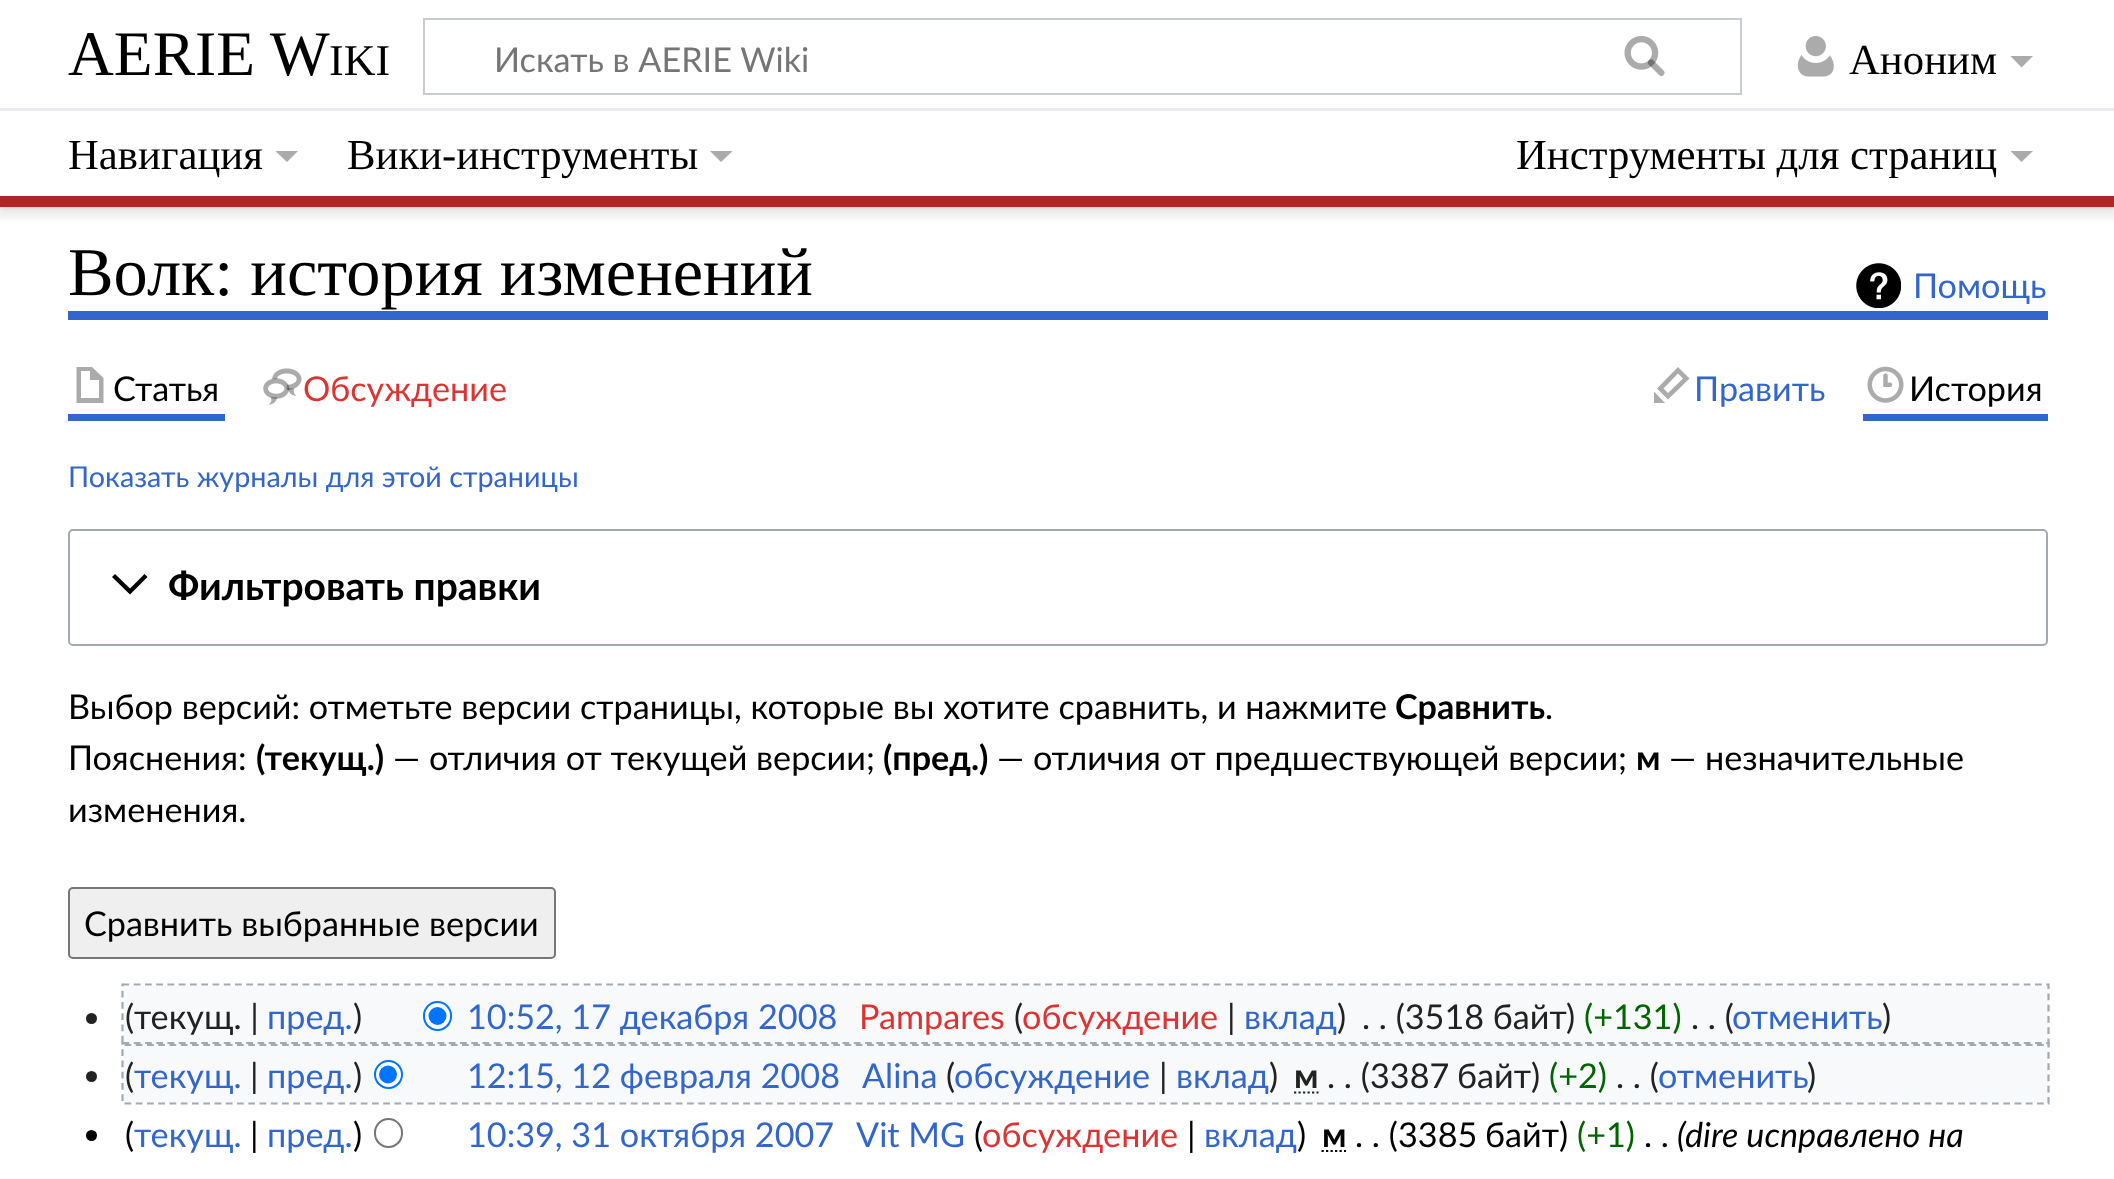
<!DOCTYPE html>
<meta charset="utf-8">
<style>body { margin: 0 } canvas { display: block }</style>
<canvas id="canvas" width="2114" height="1179"></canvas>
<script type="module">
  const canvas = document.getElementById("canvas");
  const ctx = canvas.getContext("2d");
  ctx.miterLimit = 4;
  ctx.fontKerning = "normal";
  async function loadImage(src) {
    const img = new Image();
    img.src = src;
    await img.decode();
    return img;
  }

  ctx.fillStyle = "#ffffff";
  ctx.fillRect(0, 0, 2114, 1179);
  ctx.fillStyle = "rgba(0, 0, 0, 0.2)";
  ctx.filter = "blur(2px)";
  ctx.beginPath();
  ctx.rect(0, 106, 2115, 101);
  ctx.fill();
  ctx.filter = "none";
  ctx.fillStyle = "rgba(0, 0, 0, 0.07)";
  ctx.filter = "blur(3.5px)";
  ctx.beginPath();
  ctx.rect(-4, 108, 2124, 110);
  ctx.fill();
  ctx.filter = "none";
  ctx.fillStyle = "#ffffff";
  ctx.fillRect(0, 102, 2114, 6);
  ctx.font = "63.5px Liberation Serif";
  ctx.fillStyle = "#000000";
  ctx.fillText("AERIE W", 68, 75);
  ctx.font = "44px Liberation Serif";
  ctx.fillText("IKI", 329, 75);
  ctx.strokeStyle = "#c8ccd1";
  ctx.lineWidth = 2;
  ctx.strokeRect(424, 19, 1317, 75);
  ctx.font = "34.2px Lato";
  ctx.fillStyle = "#757575";
  ctx.fillText("Искать в AERIE Wiki", 494, 72);
  ctx.drawImage(await loadImage("img1.png"), 1624, 36, 41, 40);
  ctx.drawImage(await loadImage("img2.png"), 1797, 36, 37, 41);
  ctx.font = "42.75px Liberation Serif";
  ctx.fillStyle = "#000000";
  ctx.fillText("Аноним", 1849, 74);
  ctx.fillStyle = "#ababab";
  ctx.beginPath();
  ctx.moveTo(2033, 56);
  ctx.lineTo(2021.5, 67.5);
  ctx.lineTo(2010.5, 56);
  ctx.closePath();
  ctx.fill();
  ctx.fillStyle = "#ffffff";
  ctx.fillRect(0, 111, 2114, 85);
  ctx.fillStyle = "#eaecf0";
  ctx.fillRect(0, 108, 2114, 3);
  ctx.fillStyle = "#b32424";
  ctx.fillRect(0, 196, 2114, 11);
  ctx.fillStyle = "#000000";
  ctx.fillText("Навигация", 68, 169);
  ctx.fillStyle = "#ababab";
  ctx.beginPath();
  ctx.moveTo(298, 151);
  ctx.lineTo(287, 162);
  ctx.lineTo(275.5, 151);
  ctx.closePath();
  ctx.fill();
  ctx.fillStyle = "#000000";
  ctx.fillText("Вики-инструменты", 347, 169);
  ctx.fillStyle = "#ababab";
  ctx.beginPath();
  ctx.moveTo(732.5, 151);
  ctx.lineTo(721, 162);
  ctx.lineTo(710, 151);
  ctx.closePath();
  ctx.fill();
  ctx.fillStyle = "#000000";
  ctx.fillText("Инструменты для страниц", 1516, 169);
  ctx.fillStyle = "#ababab";
  ctx.beginPath();
  ctx.moveTo(2033, 151);
  ctx.lineTo(2021.5, 162);
  ctx.lineTo(2010.5, 151);
  ctx.closePath();
  ctx.fill();
  ctx.fillStyle = "#3366cc";
  ctx.fillRect(68, 311, 1980, 9);
  ctx.font = "68.4px Liberation Serif";
  ctx.fillStyle = "#000000";
  ctx.fillText("Волк: история изменений", 68, 295);
  ctx.drawImage(await loadImage("img3.png"), 1856, 263, 45, 45);
  ctx.font = "34.2px Lato";
  ctx.fillStyle = "#3366cc";
  ctx.fillText("Помощь", 1913, 298);
  ctx.fillRect(68, 414, 157, 7);
  ctx.fillStyle = "#ababab";
  ctx.beginPath();
  ctx.moveTo(76.5, 367);
  ctx.lineTo(76.5, 403);
  ctx.lineTo(103.5, 403);
  ctx.lineTo(103.5, 378);
  ctx.lineTo(92, 367);
  ctx.closePath();
  ctx.moveTo(81, 371);
  ctx.lineTo(90, 371);
  ctx.lineTo(90, 380);
  ctx.lineTo(99, 380);
  ctx.lineTo(99, 398);
  ctx.lineTo(81, 398);
  ctx.closePath();
  ctx.fill();
  ctx.fillStyle = "#000000";
  ctx.fillText("Статья", 113, 401);
  ctx.drawImage(await loadImage("img4.png"), 263, 368, 39, 37);
  ctx.fillStyle = "#dd3333";
  ctx.fillText("Обсуждение", 303, 401);
  ctx.fillStyle = "#ababab";
  ctx.beginPath();
  ctx.moveTo(1678, 367);
  ctx.lineTo(1657, 388.5);
  ctx.lineTo(1668, 399.5);
  ctx.lineTo(1689.5, 378.5);
  ctx.closePath();
  ctx.moveTo(1678, 373.5);
  ctx.lineTo(1683, 378.5);
  ctx.lineTo(1668, 393);
  ctx.lineTo(1663.5, 388.5);
  ctx.closePath();
  ctx.moveTo(1665, 403);
  ctx.lineTo(1654, 403);
  ctx.lineTo(1654, 391.5);
  ctx.closePath();
  ctx.fill();
  ctx.fillStyle = "#3366cc";
  ctx.fillText("Править", 1694, 401);
  ctx.fillRect(1863, 414, 185, 7);
  ctx.drawImage(await loadImage("img5.png"), 1867, 366, 37, 37);
  ctx.fillStyle = "#000000";
  ctx.fillText("История", 1909, 401);
  ctx.font = "28.75px Lato";
  ctx.fillStyle = "#3366cc";
  ctx.fillText("Показать журналы для этой страницы", 68, 487);
  ctx.beginPath();
  ctx.roundRect(69, 530, 1978, 115, 4);
  ctx.strokeStyle = "#a2a9b1";
  ctx.stroke();
  ctx.fillStyle = "#000000";
  ctx.beginPath();
  ctx.moveTo(144.5, 574);
  ctx.lineTo(130, 588.5);
  ctx.lineTo(115, 574);
  ctx.lineTo(112, 577);
  ctx.lineTo(130, 594.5);
  ctx.lineTo(147.5, 577);
  ctx.closePath();
  ctx.fill();
  ctx.font = "bold 39px Lato";
  ctx.fillText("Фильтровать правки", 168, 600);
  ctx.font = "34.2px Lato";
  ctx.fillText("Выбор версий: отметьте версии страницы, которые вы хотите сравнить, и нажмите", 68, 719);
  ctx.font = "bold 34.2px Lato";
  ctx.fillText("Сравнить", 1395, 719);
  ctx.font = "34.2px Lato";
  ctx.fillText(".", 1545, 719);
  ctx.fillText("Пояснения:", 68, 770);
  ctx.font = "bold 34.2px Lato";
  ctx.fillText("(текущ.)", 256, 770);
  ctx.font = "34.2px Lato";
  ctx.fillText("— отличия от текущей версии;", 393, 770);
  ctx.font = "bold 34.2px Lato";
  ctx.fillText("(пред.)", 883, 770);
  ctx.font = "34.2px Lato";
  ctx.fillText("— отличия от предшествующей версии;", 997, 770);
  ctx.font = "bold 34.2px Lato";
  ctx.fillText("м", 1636, 770);
  ctx.font = "34.2px Lato";
  ctx.fillText("— незначительные", 1669, 770);
  ctx.fillText("изменения.", 68, 822);
  ctx.fillStyle = "#efefef";
  ctx.beginPath();
  ctx.roundRect(69, 888, 486, 70, 4);
  ctx.fill();
  ctx.strokeStyle = "#767676";
  ctx.stroke();
  ctx.fillStyle = "#000000";
  ctx.fillText("Сравнить выбранные версии", 84, 936);
  ctx.fillStyle = "#f8f9fa";
  ctx.fillRect(124, 986, 1924, 117);
  ctx.fillStyle = "#222222";
  ctx.fillText("(", 125, 1029);
  ctx.fillText("текущ. |", 134, 1029);
  ctx.fillStyle = "#3366cc";
  ctx.fillText("пред.", 267, 1029);
  ctx.fillStyle = "#222222";
  ctx.fillText(")", 353, 1029);
  ctx.fillStyle = "#ffffff";
  ctx.beginPath();
  ctx.roundRect(424, 1002, 27, 28, 13.5);
  ctx.fill();
  ctx.strokeStyle = "#0075ff";
  ctx.stroke();
  ctx.fillStyle = "#0075ff";
  ctx.beginPath();
  ctx.arc(437.5, 1016, 9, 0, Math.PI * 2);
  ctx.fill();
  ctx.fillStyle = "#3366cc";
  ctx.fillText("10:52, 17 декабря 2008", 467, 1029);
  ctx.fillStyle = "#dd3333";
  ctx.fillText("Pampares", 859, 1029);
  ctx.fillStyle = "#222222";
  ctx.fillText("(", 1014, 1029);
  ctx.fillStyle = "#dd3333";
  ctx.fillText("обсуждение", 1022, 1029);
  ctx.fillStyle = "#222222";
  ctx.fillText("|", 1227, 1029);
  ctx.fillStyle = "#3366cc";
  ctx.fillText("вклад", 1244, 1029);
  ctx.fillStyle = "#222222";
  ctx.fillText(")", 1337, 1029);
  ctx.fillText(". . (3518 байт)", 1362, 1029);
  ctx.fillStyle = "#006400";
  ctx.fillText("(+131)", 1584, 1029);
  ctx.fillStyle = "#222222";
  ctx.fillText(". . (", 1691, 1029);
  ctx.fillStyle = "#3366cc";
  ctx.fillText("отменить", 1732, 1029);
  ctx.fillStyle = "#222222";
  ctx.fillText(")", 1882, 1029);
  ctx.beginPath();
  ctx.moveTo(122.5, 984.5);
  ctx.lineTo(2048.5, 984.5);
  ctx.lineTo(2048.5, 1045);
  ctx.lineTo(122.5, 1045);
  ctx.closePath();
  ctx.strokeStyle = "#a2a9b1";
  ctx.lineWidth = 2.2;
  ctx.setLineDash([6.75, 4.5]);
  ctx.stroke();
  ctx.beginPath();
  ctx.arc(91.5, 1018.5, 5.5, 0, Math.PI * 2);
  ctx.fill();
  ctx.fillText("(", 125, 1088);
  ctx.fillStyle = "#3366cc";
  ctx.fillText("текущ.", 134, 1088);
  ctx.fillStyle = "#222222";
  ctx.fillText("|", 250, 1088);
  ctx.fillStyle = "#3366cc";
  ctx.fillText("пред.", 267, 1088);
  ctx.fillStyle = "#222222";
  ctx.fillText(")", 353, 1088);
  ctx.fillStyle = "#ffffff";
  ctx.beginPath();
  ctx.arc(388.5, 1074.5, 13.5, 0, Math.PI * 2);
  ctx.fill();
  ctx.strokeStyle = "#0075ff";
  ctx.lineWidth = 2;
  ctx.setLineDash([]);
  ctx.stroke();
  ctx.fillStyle = "#0075ff";
  ctx.beginPath();
  ctx.arc(388, 1074.5, 9, 0, Math.PI * 2);
  ctx.fill();
  ctx.fillStyle = "#3366cc";
  ctx.fillText("12:15, 12 февраля 2008", 467, 1088);
  ctx.fillText("Alina", 862, 1088);
  ctx.fillStyle = "#222222";
  ctx.fillText("(", 946, 1088);
  ctx.fillStyle = "#3366cc";
  ctx.fillText("обсуждение", 954, 1088);
  ctx.fillStyle = "#222222";
  ctx.fillText("|", 1159, 1088);
  ctx.fillStyle = "#3366cc";
  ctx.fillText("вклад", 1176, 1088);
  ctx.fillStyle = "#222222";
  ctx.fillText(")", 1269, 1088);
  ctx.font = "bold 34.2px Lato";
  ctx.fillText("м", 1294, 1088);
  ctx.beginPath();
  ctx.moveTo(1294, 1092.5);
  ctx.lineTo(1318.5, 1092.5);
  ctx.strokeStyle = "#222222";
  ctx.lineWidth = 2.2;
  ctx.setLineDash([2.25, 2.25]);
  ctx.stroke();
  ctx.font = "34.2px Lato";
  ctx.fillText(". . (", 1327, 1088);
  ctx.wordSpacing = "-1px";
  ctx.fillText("3387 байт", 1370, 1088);
  ctx.wordSpacing = "0px";
  ctx.fillText(")", 1531, 1088);
  ctx.fillStyle = "#006400";
  ctx.fillText("(+2)", 1549, 1088);
  ctx.fillStyle = "#222222";
  ctx.fillText(". . (", 1616, 1088);
  ctx.fillStyle = "#3366cc";
  ctx.fillText("отменить", 1658, 1088);
  ctx.fillStyle = "#222222";
  ctx.fillText(")", 1807, 1088);
  ctx.beginPath();
  ctx.moveTo(122.5, 1043);
  ctx.lineTo(2048.5, 1043);
  ctx.lineTo(2048.5, 1103.5);
  ctx.lineTo(122.5, 1103.5);
  ctx.closePath();
  ctx.strokeStyle = "#a2a9b1";
  ctx.setLineDash([6.75, 4.5]);
  ctx.stroke();
  ctx.beginPath();
  ctx.arc(91.5, 1076.5, 5.5, 0, Math.PI * 2);
  ctx.fill();
  ctx.fillStyle = "#000000";
  ctx.beginPath();
  ctx.arc(91.5, 1135.5, 5.5, 0, Math.PI * 2);
  ctx.fill();
  ctx.fillText("(", 125, 1147);
  ctx.fillStyle = "#3366cc";
  ctx.fillText("текущ.", 134, 1147);
  ctx.fillStyle = "#000000";
  ctx.fillText("|", 250, 1147);
  ctx.fillStyle = "#3366cc";
  ctx.fillText("пред.", 267, 1147);
  ctx.fillStyle = "#000000";
  ctx.fillText(")", 353, 1147);
  ctx.beginPath();
  ctx.roundRect(375, 1119, 27, 28, 13.5);
  ctx.strokeStyle = "#767676";
  ctx.lineWidth = 2;
  ctx.setLineDash([]);
  ctx.stroke();
  ctx.fillStyle = "#3366cc";
  ctx.fillText("10:39, 31 октября 2007", 467, 1147);
  ctx.fillText("Vit MG", 856, 1147);
  ctx.fillStyle = "#000000";
  ctx.fillText("(", 974, 1147);
  ctx.fillStyle = "#dd3333";
  ctx.fillText("обсуждение", 982, 1147);
  ctx.fillStyle = "#000000";
  ctx.fillText("|", 1187, 1147);
  ctx.fillStyle = "#3366cc";
  ctx.fillText("вклад", 1204, 1147);
  ctx.fillStyle = "#000000";
  ctx.fillText(")", 1297, 1147);
  ctx.font = "bold 34.2px Lato";
  ctx.fillText("м", 1322, 1147);
  ctx.beginPath();
  ctx.moveTo(1321.5, 1151);
  ctx.lineTo(1346, 1151);
  ctx.strokeStyle = "#000000";
  ctx.lineWidth = 2.2;
  ctx.setLineDash([2.25, 2.25]);
  ctx.stroke();
  ctx.font = "34.2px Lato";
  ctx.fillText(". . (", 1355, 1147);
  ctx.wordSpacing = "-1px";
  ctx.fillText("3385 байт", 1398, 1147);
  ctx.wordSpacing = "0px";
  ctx.fillText(")", 1559, 1147);
  ctx.fillStyle = "#006400";
  ctx.fillText("(+1)", 1577, 1147);
  ctx.font = "italic 34.2px Lato";
  ctx.fillStyle = "#000000";
  ctx.fillText("(dire исправлено на", 1677, 1147);
  ctx.font = "34.2px Lato";
  ctx.fillText(". .", 1644, 1147);
</script>
